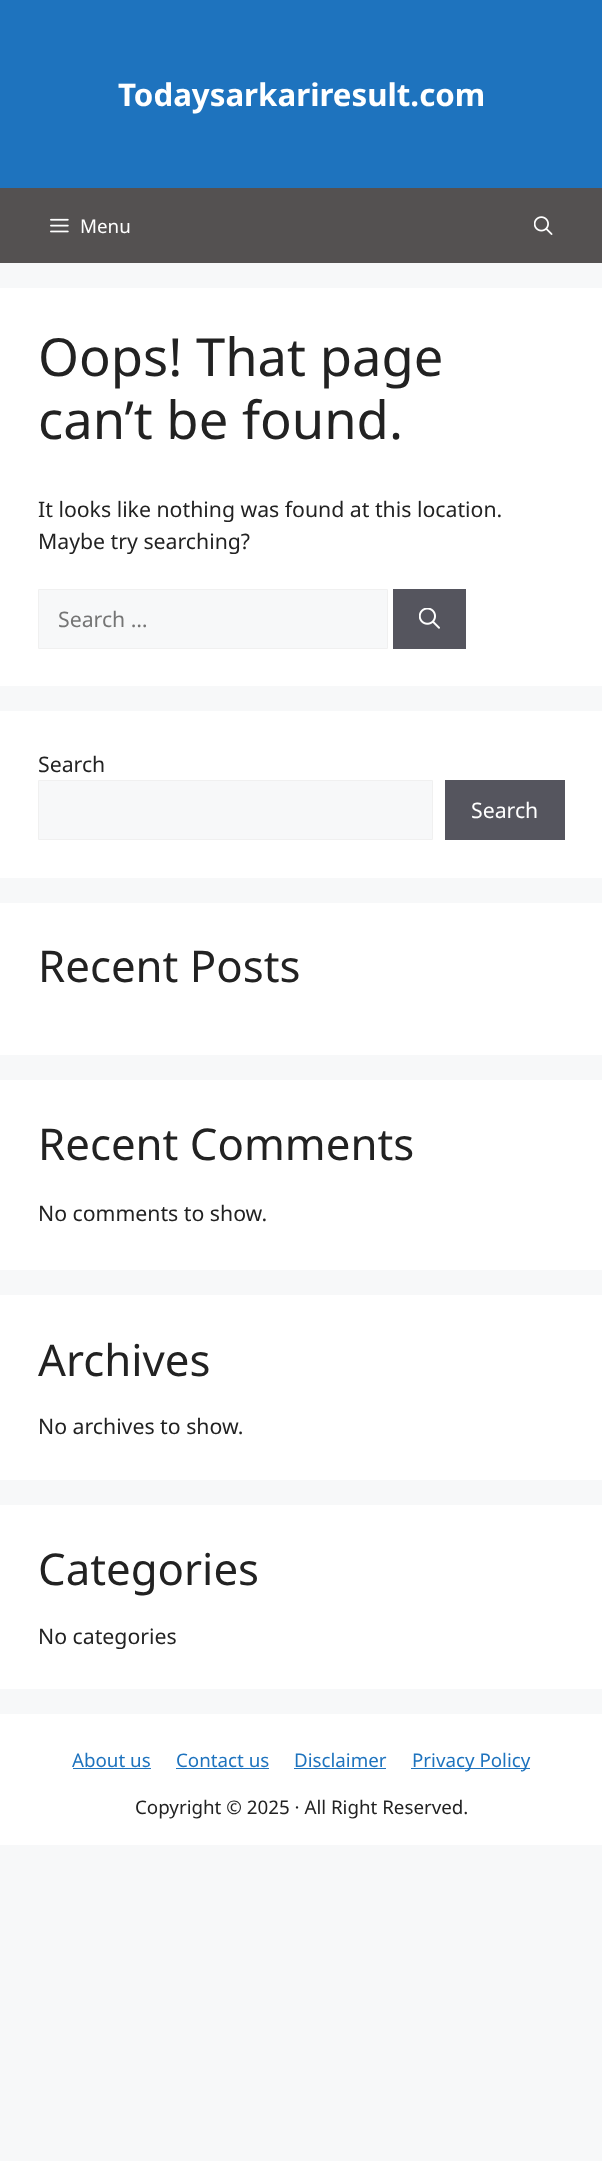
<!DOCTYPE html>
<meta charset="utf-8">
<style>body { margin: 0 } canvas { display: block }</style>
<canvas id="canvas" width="602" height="2161"></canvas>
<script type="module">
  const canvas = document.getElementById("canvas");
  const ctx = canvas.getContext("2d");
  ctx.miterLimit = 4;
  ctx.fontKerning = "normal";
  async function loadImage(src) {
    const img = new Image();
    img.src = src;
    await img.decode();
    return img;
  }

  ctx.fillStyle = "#f7f8f9";
  ctx.fillRect(0, 0, 602, 2161);
  ctx.fillStyle = "#1e73be";
  ctx.fillRect(0, 0, 602, 188);
  ctx.font = "bold 31.25px Noto Sans";
  ctx.fillStyle = "#ffffff";
  ctx.fillText("Todaysarkariresult.com", 118, 106);
  ctx.fillStyle = "#545151";
  ctx.fillRect(0, 188, 602, 75);
  ctx.drawImage(await loadImage("img1.png"), 50, 218, 19, 15);
  ctx.font = "18.75px Noto Sans";
  ctx.fillStyle = "#ffffff";
  ctx.fillText("Menu", 80, 233);
  ctx.drawImage(await loadImage("img2.png"), 534, 216, 19, 19);
  ctx.fillRect(0, 288, 602, 398);
  ctx.font = "52.5px Noto Sans";
  ctx.fillStyle = "#222222";
  ctx.fillText("Oops! That page", 38, 376);
  ctx.fillText("can’t be found.", 38, 439);
  ctx.font = "21.25px Noto Sans";
  ctx.fillText("It looks like nothing was found at this location.", 38, 517);
  ctx.fillText("Maybe try searching?", 38, 549);
  ctx.fillStyle = "#f7f8f9";
  ctx.beginPath();
  ctx.rect(38.5, 589.5, 349, 59);
  ctx.fill();
  ctx.strokeStyle = "#f0f0f0";
  ctx.stroke();
  ctx.fillStyle = "#757575";
  ctx.fillText("Search …", 58, 627);
  ctx.fillStyle = "#55555e";
  ctx.fillRect(393, 589, 73, 60);
  ctx.drawImage(await loadImage("img3.png"), 419, 608, 21, 21);
  ctx.fillStyle = "#ffffff";
  ctx.fillRect(0, 711, 602, 167);
  ctx.fillStyle = "#222222";
  ctx.fillText("Search", 38, 772);
  ctx.fillStyle = "#f7f8f9";
  ctx.beginPath();
  ctx.rect(38.5, 780.5, 394, 59);
  ctx.fill();
  ctx.stroke();
  ctx.fillStyle = "#55555e";
  ctx.fillRect(445, 780, 120, 60);
  ctx.fillStyle = "#ffffff";
  ctx.fillText("Search", 471, 818);
  ctx.fillRect(0, 903, 602, 152);
  ctx.font = "43.75px Noto Sans";
  ctx.fillStyle = "#222222";
  ctx.fillText("Recent Posts", 38, 982);
  ctx.fillStyle = "#ffffff";
  ctx.fillRect(0, 1080, 602, 190);
  ctx.fillStyle = "#222222";
  ctx.fillText("Recent Comments", 38, 1160);
  ctx.font = "21.25px Noto Sans";
  ctx.fillText("No comments to show.", 38, 1221);
  ctx.fillStyle = "#ffffff";
  ctx.fillRect(0, 1295, 602, 185);
  ctx.font = "43.75px Noto Sans";
  ctx.fillStyle = "#222222";
  ctx.fillText("Archives", 38, 1376);
  ctx.font = "21.25px Noto Sans";
  ctx.fillText("No archives to show.", 38, 1434);
  ctx.fillStyle = "#ffffff";
  ctx.fillRect(0, 1505, 602, 184);
  ctx.font = "43.75px Noto Sans";
  ctx.fillStyle = "#222222";
  ctx.fillText("Categories", 38, 1585);
  ctx.font = "21.25px Noto Sans";
  ctx.fillText("No categories", 38, 1644);
  ctx.fillStyle = "#ffffff";
  ctx.fillRect(0, 1714, 602, 131);
  ctx.font = "18.75px Noto Sans";
  ctx.fillStyle = "#1e73be";
  ctx.fillText("About us", 72, 1767);
  ctx.fillRect(73, 1768, 78, 1);
  ctx.fillText("Contact us", 176, 1767);
  ctx.fillRect(176, 1768, 93, 1);
  ctx.fillText("Disclaimer", 294, 1767);
  ctx.fillRect(294, 1768, 92, 1);
  ctx.fillRect(411, 1768, 119, 1);
  ctx.fillText("Privacy Policy", 412, 1767);
  ctx.fillStyle = "#222222";
  ctx.fillText("Copyright © 2025 · All Right Reserved.", 135, 1814);
</script>
